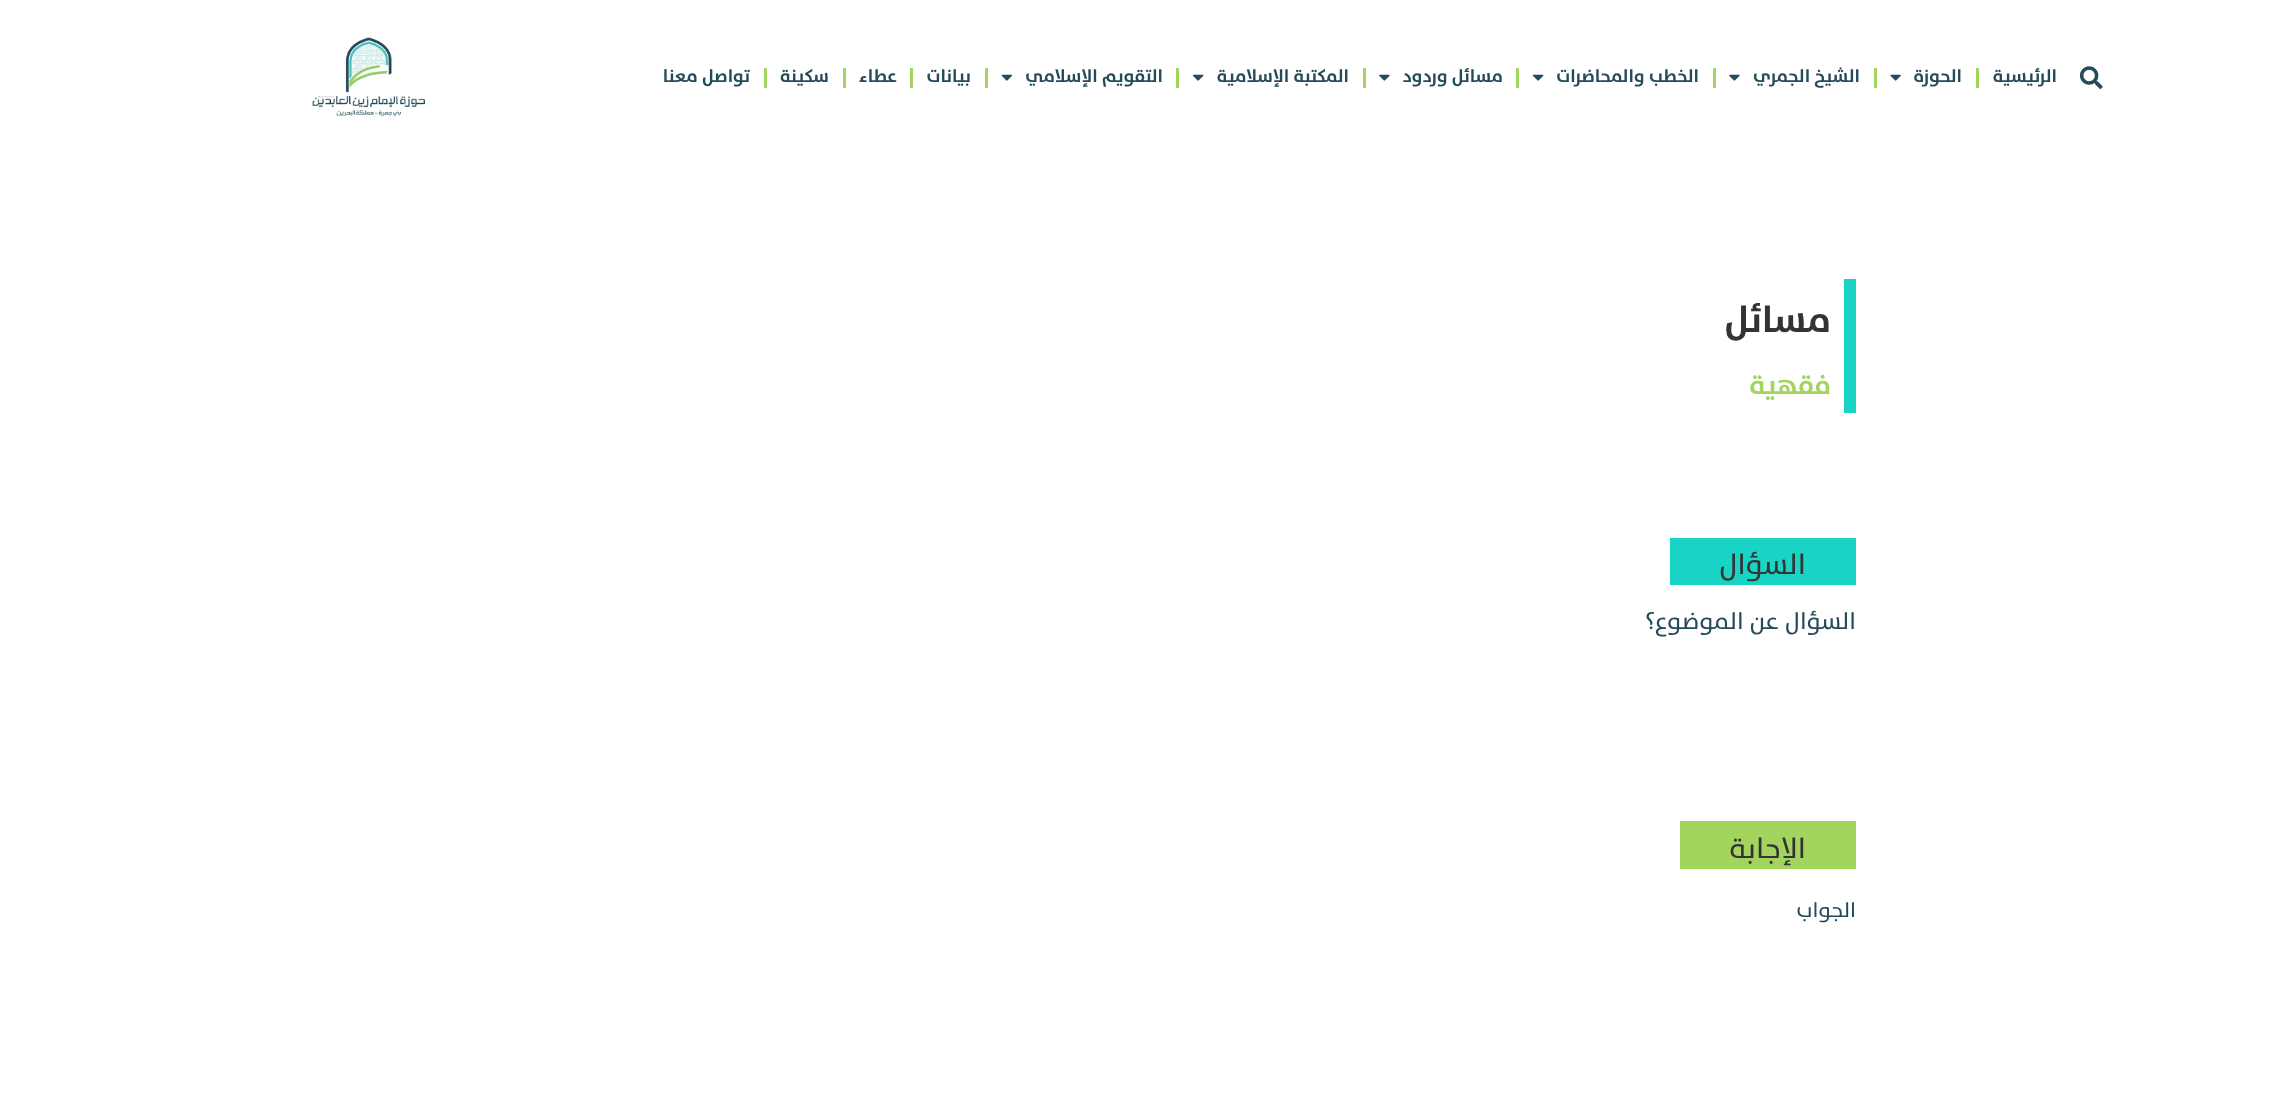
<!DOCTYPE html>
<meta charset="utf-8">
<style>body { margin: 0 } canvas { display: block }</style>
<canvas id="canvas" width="2287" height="1106"></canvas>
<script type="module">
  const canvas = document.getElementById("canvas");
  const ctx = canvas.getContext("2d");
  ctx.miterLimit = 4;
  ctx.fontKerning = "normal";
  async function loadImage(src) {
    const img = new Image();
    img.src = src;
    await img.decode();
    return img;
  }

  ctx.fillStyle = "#ffffff";
  ctx.fillRect(0, 0, 2287, 1106);
  ctx.drawImage(await loadImage("img1.png"), 2079, 66, 24, 23);
  ctx.direction = "rtl";
  ctx.font = "bold 18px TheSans";
  ctx.fillStyle = "#244b5a";
  ctx.fillText("الرئيسية", 2057, 82);
  ctx.fillStyle = "#a2d45e";
  ctx.fillRect(1976, 68, 3, 20);
  ctx.fillStyle = "#244b5a";
  ctx.fillText("الحوزة", 1962, 82);
  ctx.drawImage(await loadImage("img2.png"), 1890, 74, 11, 7);
  ctx.fillStyle = "#a2d45e";
  ctx.fillRect(1874, 68, 3, 20);
  ctx.fillStyle = "#244b5a";
  ctx.fillText("الشيخ الجمري", 1860, 82);
  ctx.drawImage(await loadImage("img3.png"), 1729, 74, 11, 7);
  ctx.fillStyle = "#a2d45e";
  ctx.fillRect(1713, 68, 3, 20);
  ctx.fillStyle = "#244b5a";
  ctx.fillText("الخطب والمحاضرات", 1699, 82);
  ctx.drawImage(await loadImage("img4.png"), 1532, 74, 12, 7);
  ctx.fillStyle = "#a2d45e";
  ctx.fillRect(1516, 68, 3, 20);
  ctx.fillStyle = "#244b5a";
  ctx.fillText("مسائل وردود", 1503, 82);
  ctx.drawImage(await loadImage("img3.png"), 1379, 74, 11, 7);
  ctx.fillStyle = "#a2d45e";
  ctx.fillRect(1363, 68, 3, 20);
  ctx.fillStyle = "#244b5a";
  ctx.fillText("المكتبة الإسلامية", 1349, 82);
  ctx.drawImage(await loadImage("img4.png"), 1192, 74, 12, 7);
  ctx.fillStyle = "#a2d45e";
  ctx.fillRect(1176, 68, 3, 20);
  ctx.fillStyle = "#244b5a";
  ctx.fillText("التقويم الإسلامي", 1163, 82);
  ctx.drawImage(await loadImage("img5.png"), 1001, 74, 12, 7);
  ctx.fillStyle = "#a2d45e";
  ctx.fillRect(985, 68, 3, 20);
  ctx.fillStyle = "#244b5a";
  ctx.fillText("بيانات", 971, 82);
  ctx.fillStyle = "#a2d45e";
  ctx.fillRect(910, 68, 3, 20);
  ctx.fillStyle = "#244b5a";
  ctx.fillText("عطاء", 897, 82);
  ctx.fillStyle = "#a2d45e";
  ctx.fillRect(843, 68, 3, 20);
  ctx.fillStyle = "#244b5a";
  ctx.fillText("سكينة", 829, 82);
  ctx.fillStyle = "#a2d45e";
  ctx.fillRect(764, 68, 3, 20);
  ctx.fillStyle = "#244b5a";
  ctx.fillText("تواصل معنا", 750, 82);
  ctx.drawImage(await loadImage("img6.png"), 312, 37, 113, 80);
  ctx.fillStyle = "#19d3c5";
  ctx.fillRect(1844, 279, 12, 134);
  ctx.font = "bold 37.5px TheSans";
  ctx.fillStyle = "#333333";
  ctx.fillText("مسائل", 1831, 332);
  ctx.font = "bold 27.5px TheSans";
  ctx.fillStyle = "#a2d45e";
  ctx.fillText("فقهية", 1831, 394);
  ctx.fillStyle = "#19d3c5";
  ctx.fillRect(1670, 538, 186, 47);
  ctx.font = "29px TheSans";
  ctx.fillStyle = "#333333";
  ctx.fillText("السؤال", 1806, 574);
  ctx.font = "23.75px TheSans";
  ctx.fillStyle = "#244b5a";
  ctx.fillText("السؤال عن الموضوع؟", 1856, 629);
  ctx.fillStyle = "#a2d45e";
  ctx.fillRect(1680, 821, 176, 48);
  ctx.font = "29px TheSans";
  ctx.fillStyle = "#333333";
  ctx.fillText("الإجابة", 1806, 858);
  ctx.font = "21px TheSans";
  ctx.fillStyle = "#244b5a";
  ctx.fillText("الجواب", 1856, 917);
</script>
